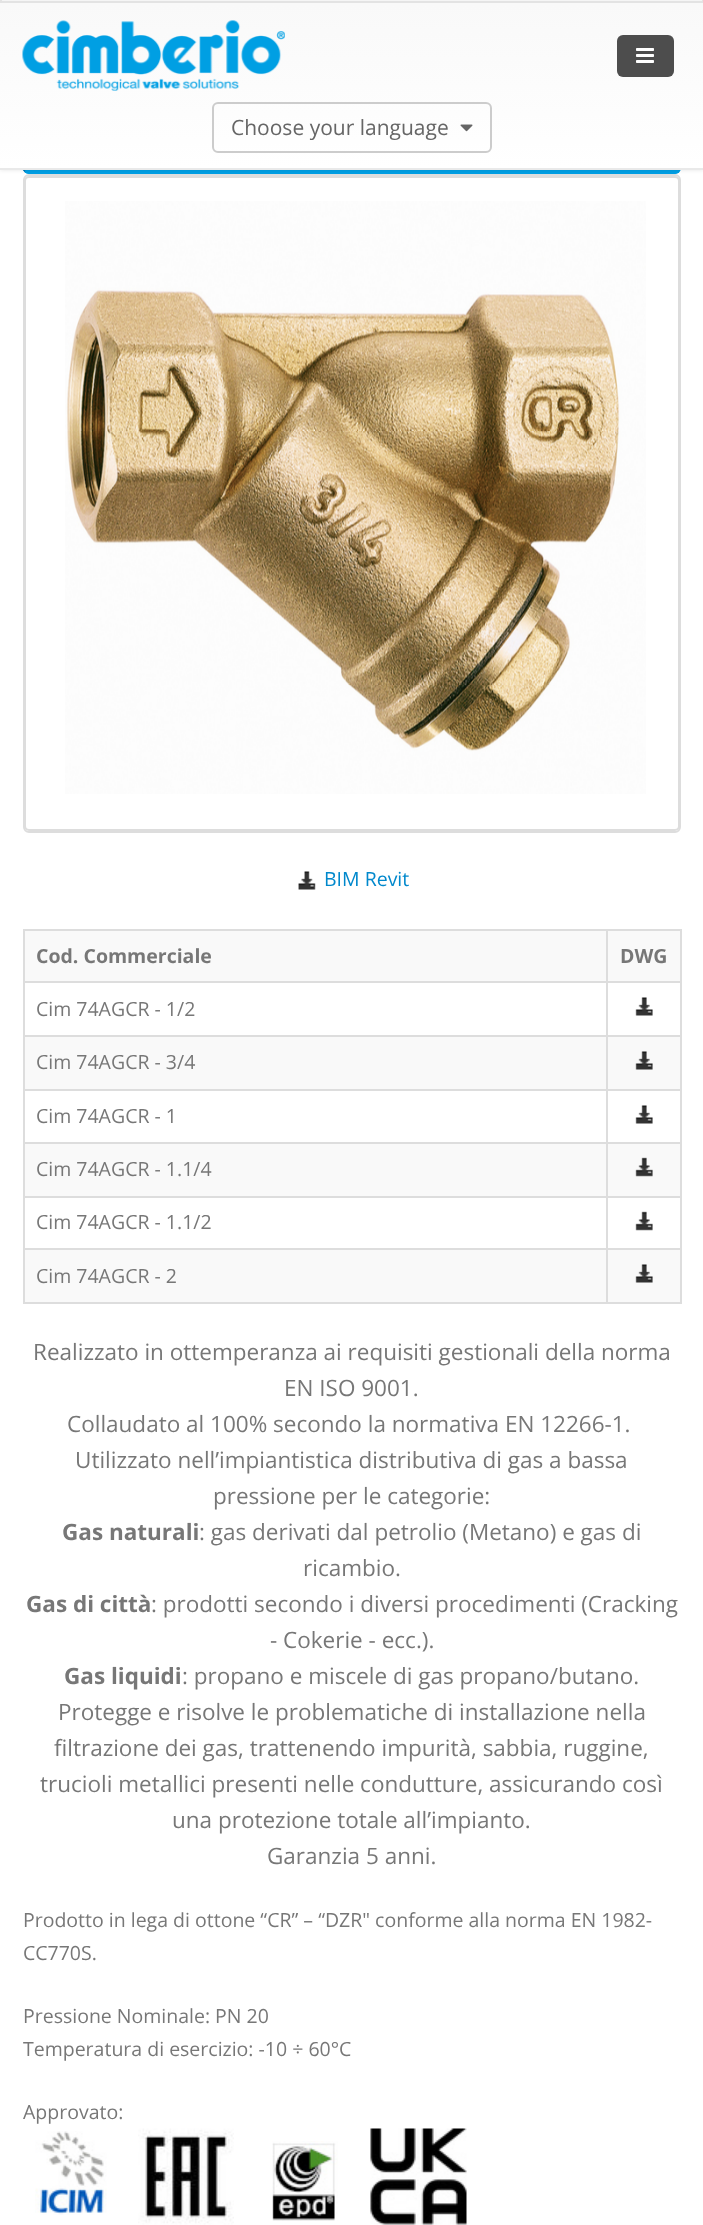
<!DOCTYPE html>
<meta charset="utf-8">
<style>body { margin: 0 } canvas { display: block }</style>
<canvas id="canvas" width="703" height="2225"></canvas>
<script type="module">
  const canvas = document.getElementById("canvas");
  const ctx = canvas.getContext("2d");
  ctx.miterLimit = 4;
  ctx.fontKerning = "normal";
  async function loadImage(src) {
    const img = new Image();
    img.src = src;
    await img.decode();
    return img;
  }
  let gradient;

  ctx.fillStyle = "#ffffff";
  ctx.fillRect(0, 0, 703, 2225);
  ctx.fillStyle = "#009ee3";
  ctx.beginPath();
  ctx.roundRect(23, 111, 658, 63, 6);
  ctx.fill();
  ctx.beginPath();
  ctx.moveTo(25, 113.5);
  ctx.bezierCurveTo(26, 112.5, 27, 112, 28.5, 112);
  ctx.lineTo(675, 112);
  ctx.bezierCurveTo(676.5, 112, 677.5, 112.5, 678.5, 113.5);
  ctx.bezierCurveTo(679.5, 114.5, 680, 115.5, 680, 117);
  ctx.lineTo(680, 168);
  ctx.bezierCurveTo(680, 169.5, 679.5, 170.5, 678.5, 171.5);
  ctx.bezierCurveTo(677.5, 172.5, 676.5, 173, 675, 173);
  ctx.lineTo(28.5, 173);
  ctx.bezierCurveTo(27, 173, 26, 172.5, 25, 171.5);
  ctx.strokeStyle = "#009ee3";
  ctx.lineWidth = 1.5;
  ctx.stroke();
  ctx.beginPath();
  ctx.moveTo(25, 171.5);
  ctx.bezierCurveTo(24, 170.5, 23, 169.5, 23, 168);
  ctx.lineTo(23, 117);
  ctx.bezierCurveTo(23, 115.5, 24, 114.5, 25, 113.5);
  ctx.strokeStyle = "#0077b3";
  ctx.stroke();
  ctx.beginPath();
  ctx.roundRect(24, 175, 656, 657, 5);
  ctx.strokeStyle = "#dddddd";
  ctx.lineWidth = 2;
  ctx.stroke();
  ctx.fillStyle = "#ffffff";
  ctx.beginPath();
  ctx.roundRect(25, 177, 654, 653, 4);
  ctx.fill();
  ctx.stroke();
  ctx.fillStyle = "rgba(0, 0, 0, 0.1)";
  ctx.filter = "blur(2px)";
  ctx.beginPath();
  ctx.rect(0, -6, 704, 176);
  ctx.fill();
  ctx.filter = "none";
  gradient = ctx.createLinearGradient(352, -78, 352, 168);
  gradient.addColorStop(0, "#f6f6f6");
  gradient.addColorStop(1, "#ffffff");
  ctx.fillStyle = gradient;
  ctx.fillRect(0, 3, 703, 165);
  ctx.fillStyle = "#e9e9e9";
  ctx.fillRect(0, 168, 703, 2);
  ctx.fillStyle = "#f5f5f5";
  ctx.beginPath();
  ctx.rect(1, -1, 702, 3);
  ctx.fill();
  ctx.strokeStyle = "#e3e3e3";
  ctx.stroke();
  ctx.drawImage(await loadImage("img1.png"), 22, 20, 263, 71);
  ctx.fillStyle = "#4d4d4d";
  ctx.beginPath();
  ctx.roundRect(617, 35, 57, 42, 6);
  ctx.fill();
  ctx.drawImage(await loadImage("img2.png"), 636, 48, 18, 15);
  ctx.beginPath();
  ctx.roundRect(213, 103, 278, 49, 5);
  ctx.strokeStyle = "#cccccc";
  ctx.stroke();
  ctx.font = "21px Open Sans";
  ctx.fillStyle = "#666666";
  ctx.fillText("Choose your language", 231, 135);
  ctx.drawImage(await loadImage("img3.png"), 460, 124, 13, 8);
  ctx.drawImage(await loadImage("img4.png"), 65, 201, 581, 593);
  ctx.drawImage(await loadImage("img5.png"), 298, 871, 18, 19);
  ctx.font = "19.5px Open Sans";
  ctx.fillStyle = "#0088cc";
  ctx.fillText("BIM Revit", 324, 886);
  ctx.fillStyle = "#dddddd";
  ctx.fillRect(23, 929, 658, 2);
  ctx.fillRect(680, 929, 2, 375);
  ctx.fillRect(23, 1302, 658, 2);
  ctx.fillRect(23, 929, 2, 375);
  ctx.fillStyle = "#f9f9f9";
  ctx.fillRect(25, 931, 655, 50);
  ctx.font = "bold 19.5px Open Sans";
  ctx.fillStyle = "#777777";
  ctx.fillText("Cod. Commerciale", 36, 963);
  ctx.fillStyle = "#dddddd";
  ctx.fillRect(606, 981, 75, 2);
  ctx.fillRect(606, 1035, 75, 2);
  ctx.fillStyle = "#f9f9f9";
  ctx.fillRect(25, 1037, 655, 52);
  ctx.fillStyle = "#dddddd";
  ctx.fillRect(606, 1089, 75, 2);
  ctx.fillRect(606, 1142, 75, 2);
  ctx.fillStyle = "#f9f9f9";
  ctx.fillRect(25, 1144, 655, 52);
  ctx.fillStyle = "#dddddd";
  ctx.fillRect(606, 1196, 75, 2);
  ctx.fillRect(606, 1248, 75, 2);
  ctx.fillStyle = "#f9f9f9";
  ctx.fillRect(25, 1250, 655, 52);
  ctx.fillStyle = "#dddddd";
  ctx.fillRect(606, 1248, 2, 56);
  ctx.fillRect(23, 1248, 585, 2);
  ctx.fillRect(606, 1196, 2, 54);
  ctx.fillRect(23, 1196, 585, 2);
  ctx.fillRect(606, 1142, 2, 55);
  ctx.fillRect(23, 1142, 585, 2);
  ctx.fillRect(606, 1089, 2, 54);
  ctx.fillRect(23, 1089, 585, 2);
  ctx.fillRect(606, 1035, 2, 56);
  ctx.fillRect(23, 1035, 585, 2);
  ctx.fillRect(606, 981, 2, 56);
  ctx.fillRect(23, 981, 585, 2);
  ctx.fillRect(606, 929, 2, 54);
  ctx.fillStyle = "#777777";
  ctx.fillText("DWG", 620, 963);
  ctx.font = "19.5px Open Sans";
  ctx.fillText("Cim 74AGCR - 1/2", 36, 1016);
  ctx.drawImage(await loadImage("img6.png"), 635, 997, 18, 19);
  ctx.fillText("Cim 74AGCR - 3/4", 36, 1069);
  ctx.drawImage(await loadImage("img7.png"), 635, 1051, 18, 19);
  ctx.fillText("Cim 74AGCR - 1", 36, 1123);
  ctx.drawImage(await loadImage("img6.png"), 635, 1105, 18, 19);
  ctx.fillText("Cim 74AGCR - 1.1/4", 36, 1176);
  ctx.drawImage(await loadImage("img8.png"), 635, 1157, 18, 20);
  ctx.fillText("Cim 74AGCR - 1.1/2", 36, 1229);
  ctx.drawImage(await loadImage("img9.png"), 635, 1211, 18, 20);
  ctx.fillText("Cim 74AGCR - 2", 36, 1283);
  ctx.drawImage(await loadImage("img7.png"), 635, 1264, 18, 19);
  ctx.font = "22.5px Open Sans";
  ctx.fillText("Realizzato in ottemperanza ai requisiti gestionali della norma", 33, 1360);
  ctx.fillText("EN ISO 9001.", 284, 1396);
  ctx.fillText("Collaudato al 100% secondo la normativa EN 12266-1.", 67, 1432);
  ctx.fillText("Utilizzato nell’impiantistica distributiva di gas a bassa", 75, 1468);
  ctx.fillText("pressione per le categorie:", 213, 1504);
  ctx.font = "bold 22.5px Open Sans";
  ctx.fillText("Gas naturali", 62, 1540);
  ctx.font = "22.5px Open Sans";
  ctx.fillText(": gas derivati dal petrolio (Metano) e gas di", 199, 1540);
  ctx.fillText("ricambio.", 303, 1576);
  ctx.font = "bold 22.5px Open Sans";
  ctx.fillText("Gas di città", 26, 1612);
  ctx.font = "22.5px Open Sans";
  ctx.fillText(": prodotti secondo i diversi procedimenti (Cracking", 151, 1612);
  ctx.fillText("- Cokerie - ecc.).", 270, 1648);
  ctx.font = "bold 22.5px Open Sans";
  ctx.fillText("Gas liquidi", 64, 1684);
  ctx.font = "22.5px Open Sans";
  ctx.fillText(": propano e miscele di gas propano/butano.", 182, 1684);
  ctx.fillText("Protegge e risolve le problematiche di installazione nella", 58, 1720);
  ctx.fillText("filtrazione dei gas, trattenendo impurità, sabbia, ruggine,", 54, 1756);
  ctx.fillText("trucioli metallici presenti nelle condutture, assicurando così", 40, 1792);
  ctx.fillText("una protezione totale all’impianto.", 172, 1828);
  ctx.fillText("Garanzia 5 anni.", 267, 1864);
  ctx.font = "19.5px Open Sans";
  ctx.fillText("Prodotto in lega di ottone “CR” – “DZR\" conforme alla norma EN 1982-", 23, 1927);
  ctx.fillText("CC770S.", 23, 1960);
  ctx.fillText("Pressione Nominale: PN 20", 23, 2023);
  ctx.fillText("Temperatura di esercizio: -10 ÷ 60°C", 23, 2056);
  ctx.fillText("Approvato:", 23, 2119);
  ctx.drawImage(await loadImage("img10.png"), 35, 2131, 72, 84);
  ctx.drawImage(await loadImage("img11.png"), 138, 2128, 96, 97);
  ctx.drawImage(await loadImage("img12.png"), 272, 2141, 66, 80);
  ctx.drawImage(await loadImage("img13.png"), 370, 2128, 97, 97);
</script>
